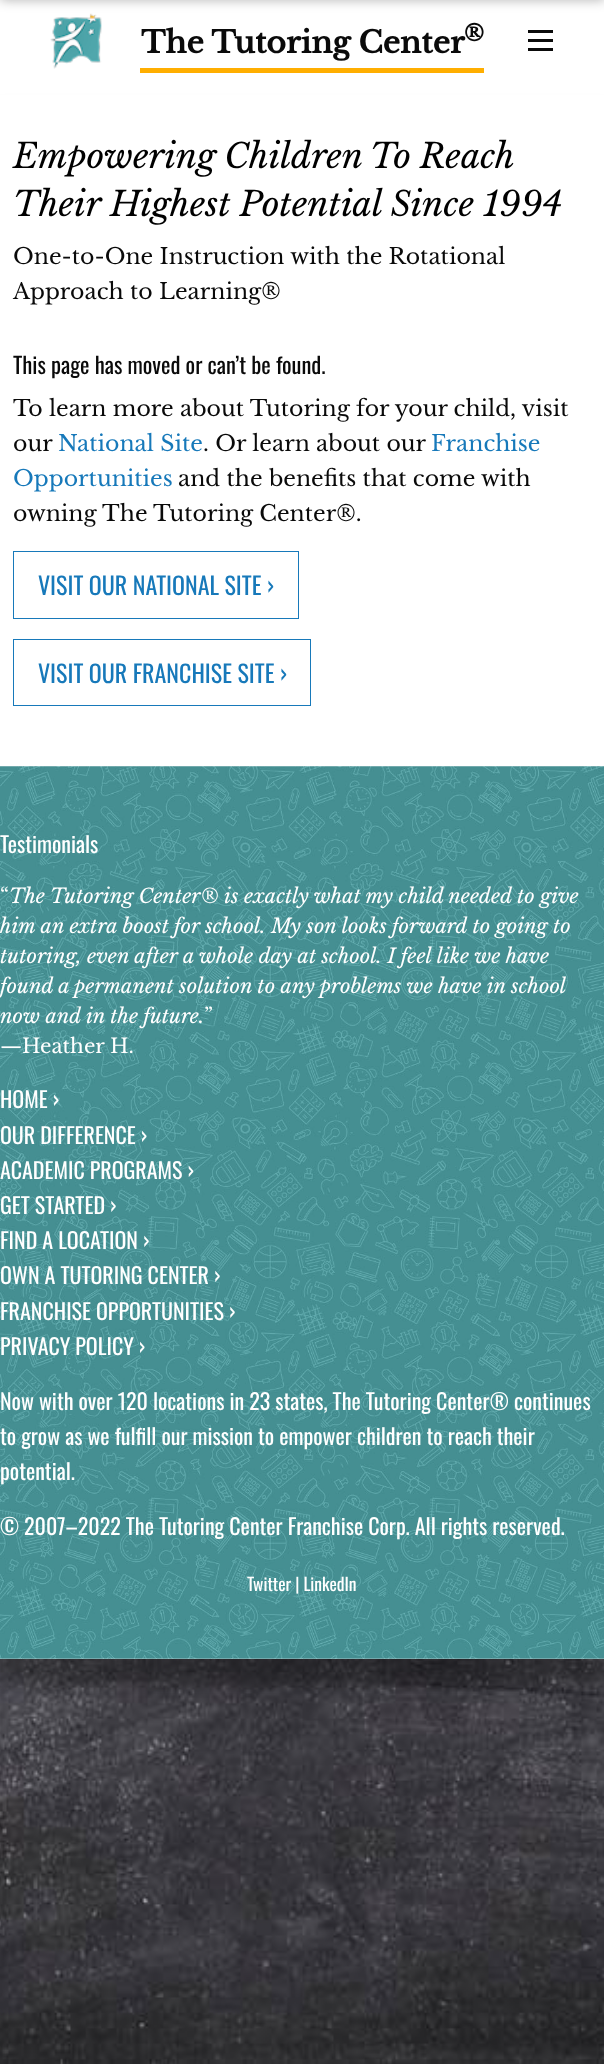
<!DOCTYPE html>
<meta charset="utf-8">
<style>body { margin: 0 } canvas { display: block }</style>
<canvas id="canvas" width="604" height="2064"></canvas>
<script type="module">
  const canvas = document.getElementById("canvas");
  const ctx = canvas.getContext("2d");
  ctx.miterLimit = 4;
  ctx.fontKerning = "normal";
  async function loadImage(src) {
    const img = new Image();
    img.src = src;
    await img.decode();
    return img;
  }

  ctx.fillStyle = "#ffffff";
  ctx.fillRect(0, 0, 604, 2064);
  ctx.drawImage(await loadImage("img1.png"), 0, 1659, 604, 405);
  ctx.drawImage(await loadImage("img2.png"), 50, 13, 52, 56);
  ctx.fillStyle = "rgba(0, 0, 0, 0.3)";
  ctx.filter = "blur(6px)";
  ctx.beginPath();
  ctx.rect(0, -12, 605, 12);
  ctx.fill();
  ctx.filter = "none";
  ctx.fillStyle = "#ffae00";
  ctx.fillRect(140, 68, 344, 5);
  ctx.font = "bold 30px Libre Baskerville";
  ctx.fillStyle = "#0a0a0a";
  ctx.fillText("The Tutoring Center", 141, 53);
  ctx.font = "bold 22.5px Libre Baskerville";
  ctx.fillText("®", 464, 41);
  ctx.fillRect(528, 48, 25, 3);
  ctx.fillRect(528, 39, 25, 3);
  ctx.fillRect(528, 30, 25, 3);
  ctx.fillStyle = "rgba(0, 0, 0, 0.3)";
  ctx.filter = "blur(6px)";
  ctx.beginPath();
  ctx.rect(-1, 106, 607, 1579);
  ctx.fill();
  ctx.filter = "none";
  ctx.fillStyle = "#ffffff";
  ctx.fillRect(0, 95, 604, 1564);
  ctx.wordSpacing = "-0.5px";
  ctx.font = "italic 34px Libre Baskerville";
  ctx.fillStyle = "#000000";
  ctx.fillText("Empowering Children To Reach", 13, 168);
  ctx.wordSpacing = "0px";
  ctx.fillText("Their Highest Potential Since 1994", 13, 216);
  ctx.font = "22px Libre Baskerville";
  ctx.fillStyle = "#0a0a0a";
  ctx.fillText("One-to-One Instruction with the Rotational", 13, 264);
  ctx.fillText("Approach to Learning®", 13, 299);
  ctx.font = "22.5px Oswald";
  ctx.fillText("This page has moved or can’t be found.", 13, 374);
  ctx.font = "22px Libre Baskerville";
  ctx.fillText("To learn more about Tutoring for your child, visit", 13, 416);
  ctx.fillText("our", 13, 451);
  ctx.fillStyle = "#1779ba";
  ctx.fillText("National Site", 58, 451);
  ctx.fillStyle = "#0a0a0a";
  ctx.fillText(". Or learn about our", 203, 451);
  ctx.fillStyle = "#1779ba";
  ctx.fillText("Franchise", 431, 451);
  ctx.fillText("Opportunities", 13, 486);
  ctx.fillStyle = "#0a0a0a";
  ctx.fillText("and the benefits that come with", 178, 486);
  ctx.fillText("owning The Tutoring Center®.", 13, 521);
  ctx.strokeStyle = "#1779ba";
  ctx.strokeRect(13.5, 551.5, 285, 67);
  ctx.font = "24px Oswald";
  ctx.fillStyle = "#1779ba";
  ctx.fillText("VISIT OUR NATIONAL SITE ›", 38, 595);
  ctx.strokeRect(13.5, 639.5, 297, 66);
  ctx.fillText("VISIT OUR FRANCHISE SITE ›", 38, 683);
  ctx.drawImage(await loadImage("img3.png"), 0, 766, 604, 893);
  ctx.font = "22px Oswald";
  ctx.fillStyle = "#ffffff";
  ctx.fillText("Testimonials", 0, 853);
  ctx.font = "20px Libre Baskerville";
  ctx.fillText("“", 0, 903);
  ctx.font = "italic 20px Libre Baskerville";
  ctx.fillText("The Tutoring Center® is exactly what my child needed to give", 9, 903);
  ctx.fillText("him an extra boost for school. My son looks forward to going to", 0, 933);
  ctx.fillText("tutoring, even after a whole day at school. I feel like we have", 0, 963);
  ctx.fillText("found a permanent solution to any problems we have in school", 0, 993);
  ctx.fillText("now and in the future.", 0, 1023);
  ctx.font = "20px Libre Baskerville";
  ctx.fillText("”", 204, 1023);
  ctx.fillText("—Heather H.", 0, 1053);
  ctx.font = "22px Oswald";
  ctx.fillText("HOME ›", 0, 1108);
  ctx.fillText("OUR DIFFERENCE ›", 0, 1144);
  ctx.fillText("ACADEMIC PROGRAMS ›", 0, 1179);
  ctx.fillText("GET STARTED ›", 0, 1214);
  ctx.fillText("FIND A LOCATION ›", 0, 1249);
  ctx.fillText("OWN A TUTORING CENTER ›", 0, 1284);
  ctx.fillText("FRANCHISE OPPORTUNITIES ›", 0, 1320);
  ctx.fillText("PRIVACY POLICY ›", 0, 1355);
  ctx.fillText("Now with over 120 locations in 23 states, The Tutoring Center® continues", 0, 1410);
  ctx.fillText("to grow as we fulfill our mission to empower children to reach their", 0, 1445);
  ctx.fillText("potential.", 0, 1480);
  ctx.fillText("© 2007–2022 The Tutoring Center Franchise Corp. All rights reserved.", 0, 1535);
  ctx.font = "17.5px Oswald";
  ctx.fillText("Twitter | LinkedIn", 247, 1591);
</script>
